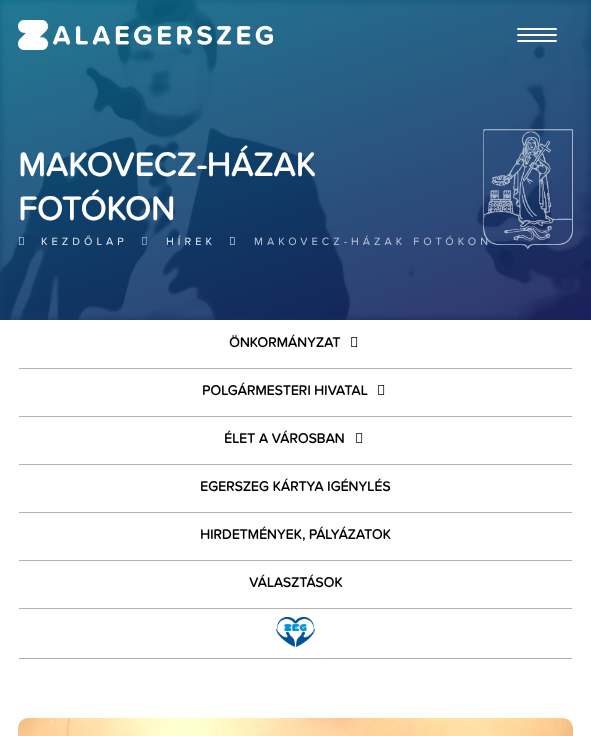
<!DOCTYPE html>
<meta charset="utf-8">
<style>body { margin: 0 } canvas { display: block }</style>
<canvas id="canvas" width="591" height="736"></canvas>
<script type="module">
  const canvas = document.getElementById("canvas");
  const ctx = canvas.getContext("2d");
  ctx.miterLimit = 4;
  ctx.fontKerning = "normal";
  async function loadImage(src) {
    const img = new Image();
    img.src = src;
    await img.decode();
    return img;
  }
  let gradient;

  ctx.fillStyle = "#ffffff";
  ctx.fillRect(0, 0, 591, 736);
  gradient = ctx.createLinearGradient(215, -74, 376, 394);
  gradient.addColorStop(0, "#096b89");
  gradient.addColorStop(1, "#1a1e5e");
  ctx.fillStyle = gradient;
  ctx.fillRect(0, 0, 591, 320);
  ctx.drawImage(await loadImage("img2.png"), 0, 0, 591, 320);
  ctx.drawImage(await loadImage("img1.png"), 18, 20, 255, 30);
  ctx.fillStyle = "#ffffff";
  ctx.beginPath();
  ctx.roundRect(517, 28, 40, 2, 1);
  ctx.fill();
  ctx.beginPath();
  ctx.roundRect(517, 34, 40, 2, 1);
  ctx.fill();
  ctx.beginPath();
  ctx.roundRect(517, 40, 40, 2, 1);
  ctx.fill();
  ctx.font = "bold 34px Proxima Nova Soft";
  ctx.fillStyle = "#fdfdfd";
  ctx.fillText("MAKOVECZ-HÁZAK", 18, 176);
  ctx.fillText("FOTÓKON", 18, 220);
  ctx.drawImage(await loadImage("img3.png"), 483, 129, 90, 121);
  ctx.drawImage(await loadImage("img4.png"), 19, 237, 5, 8);
  ctx.letterSpacing = "4px";
  ctx.font = "11px Proxima Nova Soft";
  ctx.fillStyle = "#e7ecf0";
  ctx.fillText("KEZDŐLAP", 41, 245);
  ctx.drawImage(await loadImage("img5.png"), 142, 237, 5, 8);
  ctx.fillText("HÍREK", 166, 245);
  ctx.drawImage(await loadImage("img6.png"), 230, 237, 5, 8);
  ctx.fillStyle = "#bdc6d4";
  ctx.fillText("MAKOVECZ-HÁZAK FOTÓKON", 254, 245);
  ctx.fillStyle = "#b3b3b3";
  ctx.fillRect(19, 368, 553, 1);
  ctx.letterSpacing = "0px";
  ctx.font = "bold 14px Proxima Nova Soft";
  ctx.fillStyle = "#000000";
  ctx.fillText("ÖNKORMÁNYZAT", 229, 347);
  ctx.drawImage(await loadImage("img7.png"), 351, 337, 7, 10);
  ctx.fillStyle = "#b3b3b3";
  ctx.fillRect(19, 416, 553, 1);
  ctx.fillStyle = "#000000";
  ctx.fillText("POLGÁRMESTERI HIVATAL", 202, 395);
  ctx.drawImage(await loadImage("img7.png"), 378, 385, 7, 10);
  ctx.fillStyle = "#b3b3b3";
  ctx.fillRect(19, 464, 553, 1);
  ctx.fillStyle = "#000000";
  ctx.fillText("ÉLET A VÁROSBAN", 224, 443);
  ctx.drawImage(await loadImage("img7.png"), 356, 433, 7, 10);
  ctx.fillStyle = "#b3b3b3";
  ctx.fillRect(19, 512, 553, 1);
  ctx.fillStyle = "#000000";
  ctx.fillText("EGERSZEG KÁRTYA IGÉNYLÉS", 200, 491);
  ctx.fillStyle = "#b3b3b3";
  ctx.fillRect(19, 560, 553, 1);
  ctx.fillStyle = "#000000";
  ctx.fillText("HIRDETMÉNYEK, PÁLYÁZATOK", 200, 539);
  ctx.fillStyle = "#b3b3b3";
  ctx.fillRect(19, 608, 553, 1);
  ctx.fillStyle = "#000000";
  ctx.fillText("VÁLASZTÁSOK", 249, 587);
  ctx.fillStyle = "#adadad";
  ctx.fillRect(19, 658, 553, 1);
  ctx.drawImage(await loadImage("img8.png"), 276, 617, 39, 30);
  ctx.drawImage(await loadImage("img9.png"), 18, 718, 555, 18);
</script>
